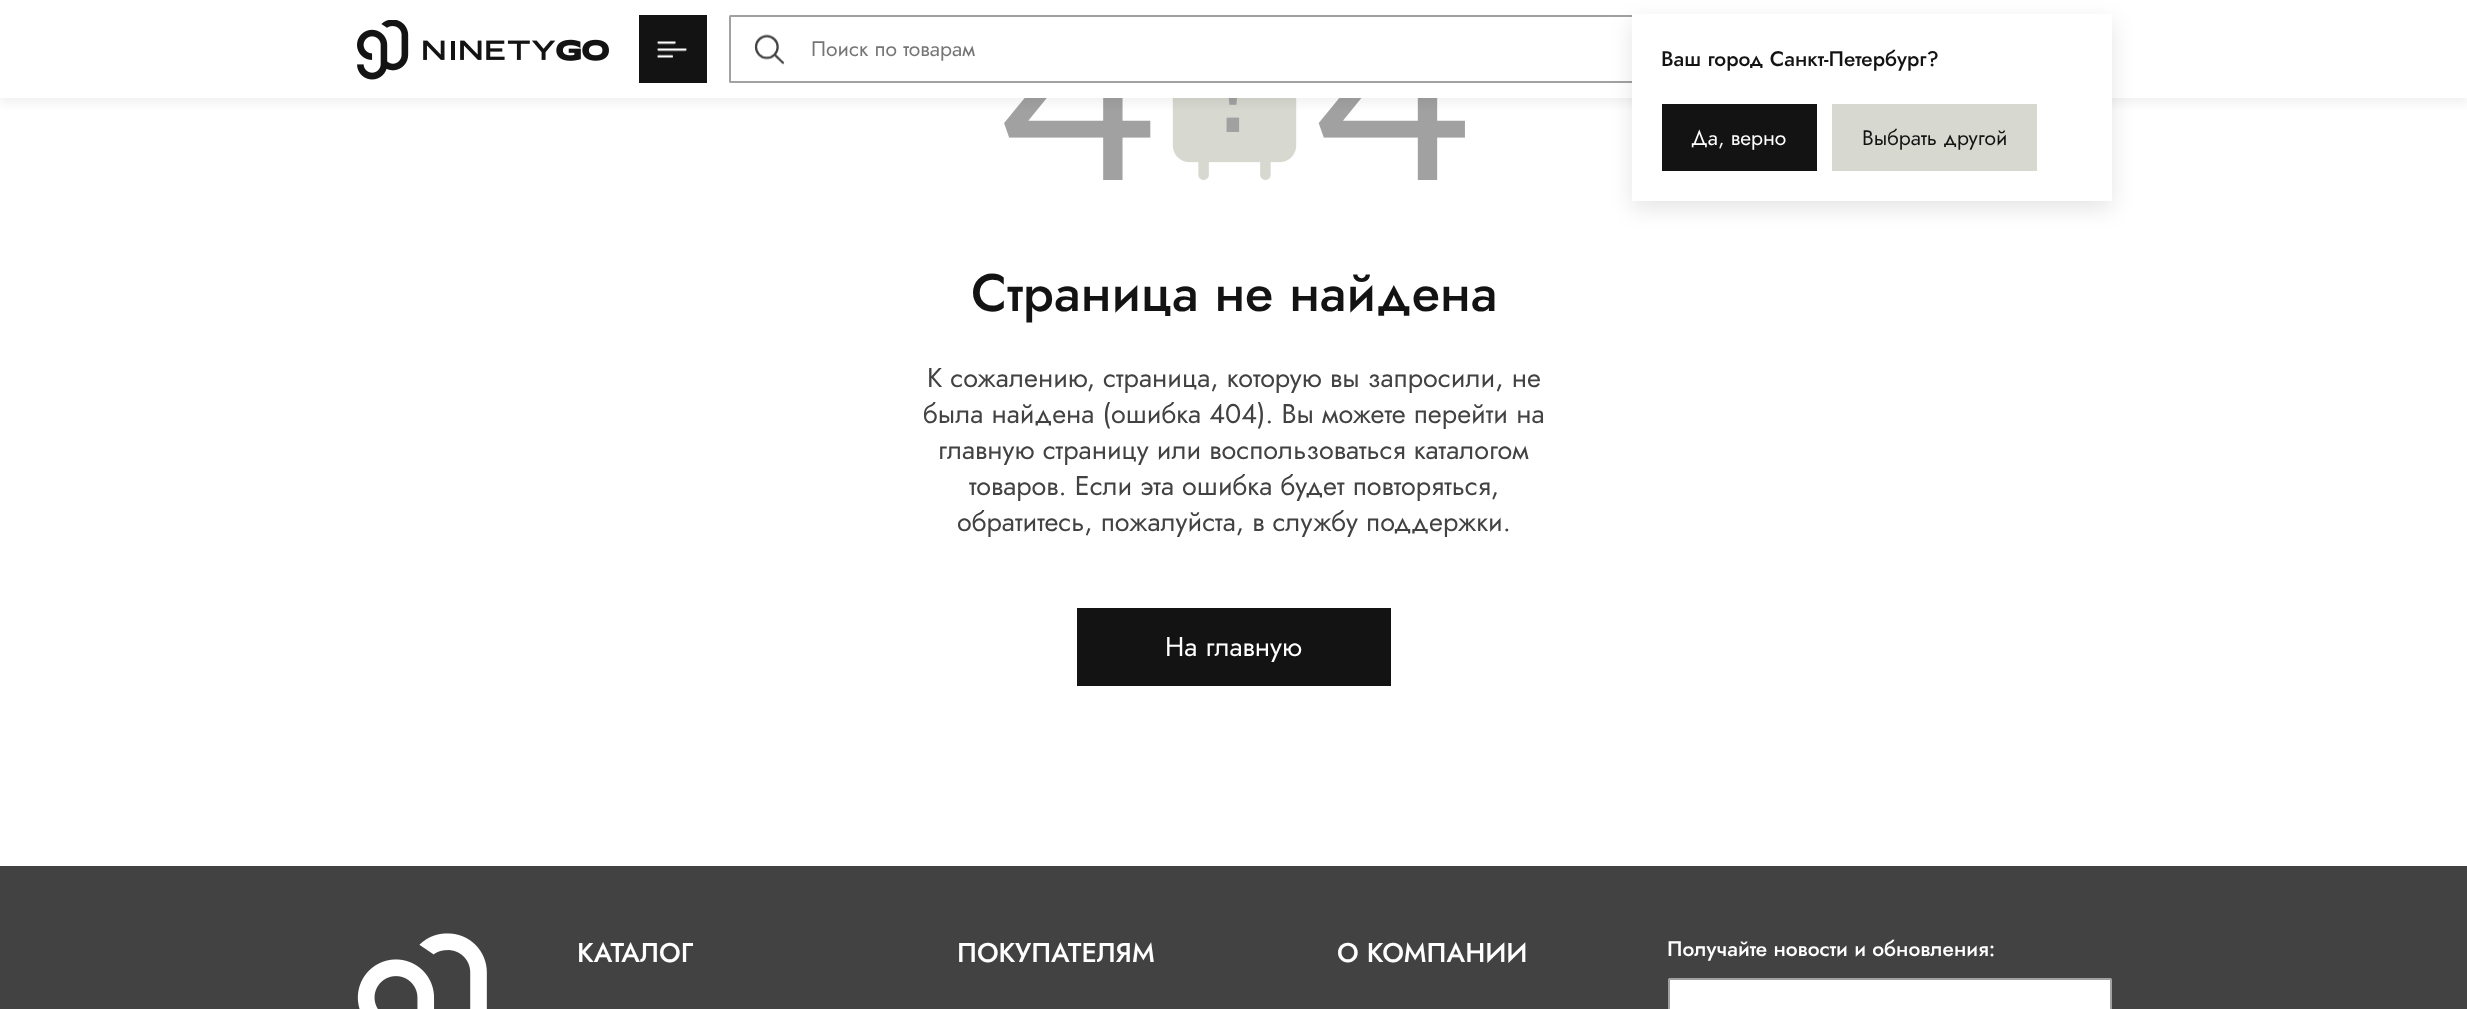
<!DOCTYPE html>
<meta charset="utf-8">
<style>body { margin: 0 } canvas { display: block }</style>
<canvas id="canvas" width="2467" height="1009"></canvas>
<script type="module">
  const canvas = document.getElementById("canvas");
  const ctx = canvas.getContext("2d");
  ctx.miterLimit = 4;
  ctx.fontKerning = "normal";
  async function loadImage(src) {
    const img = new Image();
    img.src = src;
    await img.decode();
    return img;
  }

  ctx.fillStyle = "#ffffff";
  ctx.fillRect(0, 0, 2467, 1009);
  ctx.drawImage(await loadImage("img4.png"), 1004, 98, 461, 82);
  ctx.fillStyle = "rgba(0, 0, 0, 0.05)";
  ctx.filter = "blur(4px)";
  ctx.beginPath();
  ctx.rect(0, -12, 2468, 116);
  ctx.fill();
  ctx.filter = "none";
  ctx.fillStyle = "#ffffff";
  ctx.fillRect(0, 0, 2467, 98);
  ctx.drawImage(await loadImage("img1.png"), 357, 20, 252, 60);
  ctx.fillStyle = "#131313";
  ctx.fillRect(639, 15, 68, 68);
  ctx.drawImage(await loadImage("img2.png"), 657, 41, 30, 17);
  ctx.beginPath();
  ctx.roundRect(730, 16, 1140, 66, 0.5);
  ctx.strokeStyle = "#a1a1a1";
  ctx.lineWidth = 2;
  ctx.stroke();
  ctx.drawImage(await loadImage("img3.png"), 754, 34, 31, 31);
  ctx.font = "21px Jost";
  ctx.fillStyle = "#757575";
  ctx.fillText("Поиск по товарам", 811, 56);
  ctx.fillStyle = "rgba(0, 0, 0, 0.1)";
  ctx.filter = "blur(11px)";
  ctx.beginPath();
  ctx.rect(1632, 21, 480, 188);
  ctx.fill();
  ctx.filter = "none";
  ctx.fillStyle = "#ffffff";
  ctx.fillRect(1632, 14, 480, 187);
  ctx.font = "500 21px Jost";
  ctx.fillStyle = "#131313";
  ctx.fillText("Ваш город Санкт-Петербург?", 1661, 66);
  ctx.fillRect(1662, 104, 155, 67);
  ctx.font = "21px Jost";
  ctx.fillStyle = "#ffffff";
  ctx.fillText("Да, верно", 1691, 145);
  ctx.fillStyle = "#d7d9d0";
  ctx.fillRect(1832, 104, 205, 67);
  ctx.fillStyle = "#131313";
  ctx.fillText("Выбрать другой", 1862, 145);
  ctx.font = "500 52.5px Jost";
  ctx.fillText("Страница не найдена", 971, 311);
  ctx.font = "27px Jost";
  ctx.fillStyle = "#424242";
  ctx.fillText("К сожалению, страница, которую вы запросили, не", 927, 387);
  ctx.fillText("была найдена (ошибка 404). Вы можете перейти на", 923, 423);
  ctx.fillText("главную страницу или воспользоваться каталогом", 938, 459);
  ctx.fillText("товаров. Если эта ошибка будет повторяться,", 969, 495);
  ctx.fillText("обратитесь, пожалуйста, в службу поддержки.", 957, 531);
  ctx.fillStyle = "#131313";
  ctx.fillRect(1077, 608, 314, 78);
  ctx.fillStyle = "#ffffff";
  ctx.fillText("На главную", 1165, 656);
  ctx.fillStyle = "#424242";
  ctx.fillRect(0, 866, 2467, 143);
  ctx.drawImage(await loadImage("img5.png"), 357, 933, 130, 76);
  ctx.font = "500 27px Jost";
  ctx.fillStyle = "#ffffff";
  ctx.fillText("КАТАЛОГ", 577, 962);
  ctx.fillText("ПОКУПАТЕЛЯМ", 957, 962);
  ctx.fillText("О КОМПАНИИ", 1337, 962);
  ctx.font = "500 21px Jost";
  ctx.fillText("Получайте новости и обновления:", 1667, 956);
  ctx.beginPath();
  ctx.roundRect(1669, 979, 442, 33, 0.5);
  ctx.fill();
  ctx.stroke();
</script>
